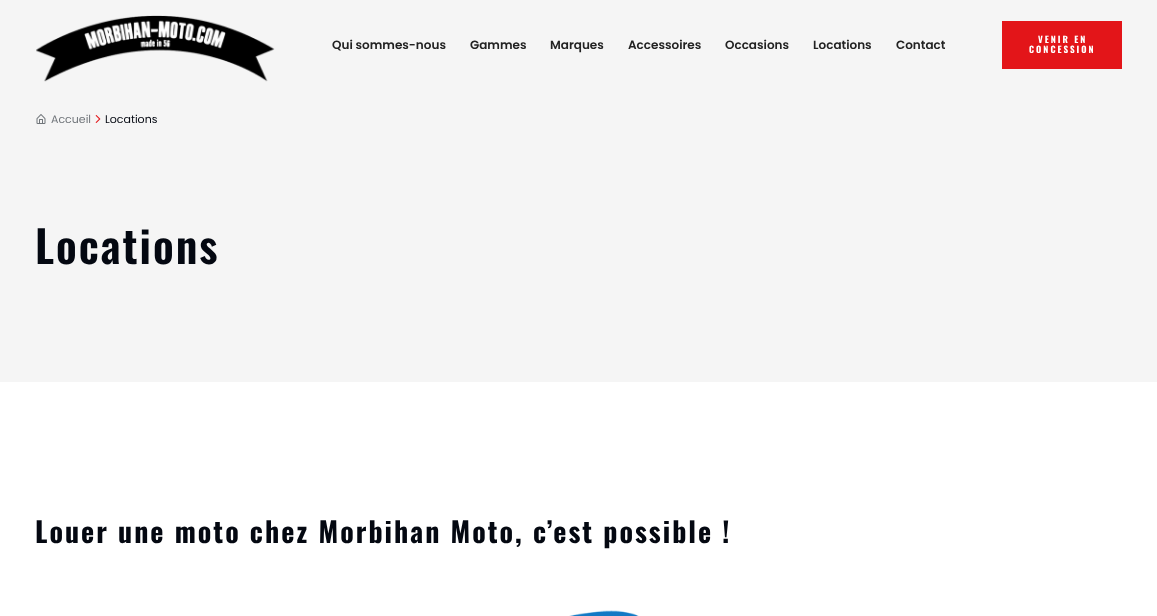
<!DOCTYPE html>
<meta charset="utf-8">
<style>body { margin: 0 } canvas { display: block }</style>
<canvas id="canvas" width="1157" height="616"></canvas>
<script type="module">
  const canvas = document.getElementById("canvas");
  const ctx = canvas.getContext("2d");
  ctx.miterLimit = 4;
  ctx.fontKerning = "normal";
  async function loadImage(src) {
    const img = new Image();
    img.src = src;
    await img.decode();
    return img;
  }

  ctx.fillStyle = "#ffffff";
  ctx.fillRect(0, 0, 1157, 616);
  ctx.fillStyle = "#f5f5f5";
  ctx.fillRect(0, 0, 1157, 382);
  ctx.drawImage(await loadImage("img1.png"), 36, 15, 239, 67);
  ctx.font = "600 12px Poppins";
  ctx.fillStyle = "#222222";
  ctx.fillText("Qui sommes-nous", 332, 49);
  ctx.fillText("Gammes", 470, 49);
  ctx.fillText("Marques", 550, 49);
  ctx.fillText("Accessoires", 628, 49);
  ctx.fillText("Occasions", 725, 49);
  ctx.fillText("Locations", 813, 49);
  ctx.fillText("Contact", 896, 49);
  ctx.fillStyle = "#e31519";
  ctx.fillRect(1002, 21, 120, 48);
  ctx.letterSpacing = "2px";
  ctx.font = "bold 9px Oswald";
  ctx.fillStyle = "#ffffff";
  ctx.fillText("VENIR EN", 1038, 43);
  ctx.fillText("CONCESSION", 1029, 53);
  ctx.drawImage(await loadImage("img2.png"), 36, 114, 10, 10);
  ctx.letterSpacing = "0px";
  ctx.font = "11px Poppins";
  ctx.fillStyle = "#70757a";
  ctx.fillText("Accueil", 51, 123);
  ctx.drawImage(await loadImage("img3.png"), 95, 115, 6, 8);
  ctx.fillStyle = "#040811";
  ctx.fillText("Locations", 105, 123);
  ctx.letterSpacing = "2px";
  ctx.font = "600 44px Oswald";
  ctx.fillText("Locations", 35, 264);
  ctx.font = "bold 28px Oswald";
  ctx.fillText("Louer une moto chez Morbihan Moto, c’est possible !", 35, 543);
  ctx.drawImage(await loadImage("img4.png"), 569, 610, 70, 6);
</script>
